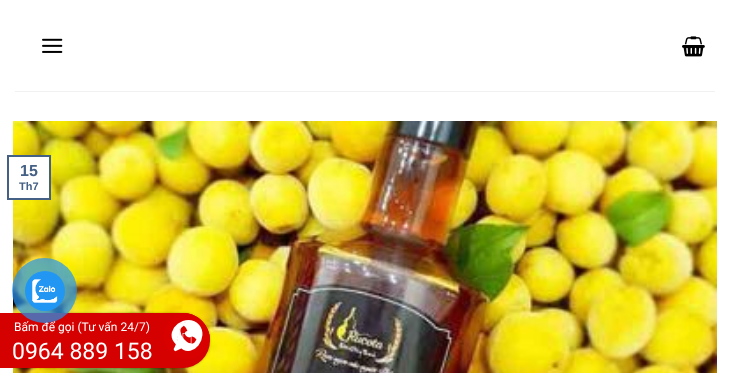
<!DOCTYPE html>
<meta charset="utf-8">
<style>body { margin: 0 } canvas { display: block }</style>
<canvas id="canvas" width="730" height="373"></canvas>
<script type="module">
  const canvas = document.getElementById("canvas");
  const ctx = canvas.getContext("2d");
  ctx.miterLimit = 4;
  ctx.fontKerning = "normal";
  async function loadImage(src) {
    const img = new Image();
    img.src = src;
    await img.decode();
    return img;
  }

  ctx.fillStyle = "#ffffff";
  ctx.fillRect(0, 0, 730, 373);
  ctx.drawImage(await loadImage("img1.png"), 42, 38, 21, 15);
  ctx.drawImage(await loadImage("img2.png"), 682, 36, 23, 21);
  ctx.fillStyle = "#f1f1f1";
  ctx.fillRect(15, 91, 700, 1);
  ctx.drawImage(await loadImage("img3.png"), 13, 121, 704, 252);
  ctx.fillStyle = "#ffffff";
  ctx.fillRect(13, 157, 36, 41);
  ctx.strokeStyle = "#446084";
  ctx.lineWidth = 2;
  ctx.strokeRect(8, 156, 42, 43);
  ctx.font = "bold 16px Liberation Sans";
  ctx.fillStyle = "#446084";
  ctx.fillText("15", 20, 176);
  ctx.font = "bold 11px Liberation Sans";
  ctx.fillText("Th7", 19, 190);
  ctx.fillStyle = "rgba(0, 0, 0, 0.3)";
  ctx.filter = "blur(1px)";
  ctx.beginPath();
  ctx.roundRect(0, 313, 210, 55, 27.5);
  ctx.fill();
  ctx.filter = "none";
  ctx.fillStyle = "#d50000";
  ctx.beginPath();
  ctx.roundRect(0, 313, 210, 55, [0, 27.5, 27.5, 0]);
  ctx.fill();
  ctx.font = "12px Roboto";
  ctx.fillStyle = "#ffffff";
  ctx.fillText("Bấm để gọi (Tư vấn 24/7)", 14, 331);
  ctx.fillStyle = "rgba(33, 150, 243, 0.7)";
  ctx.beginPath();
  ctx.arc(44.5, 290.5, 32.5, 0, Math.PI * 2);
  ctx.fill();
  ctx.fillStyle = "#2196f3";
  ctx.beginPath();
  ctx.arc(45, 291, 20, 0, Math.PI * 2);
  ctx.fill();
  ctx.drawImage(await loadImage("img4.png"), 32, 279, 26, 24);
  ctx.font = "23px Roboto";
  ctx.fillStyle = "#ffffff";
  ctx.fillText("0964 889 158", 12, 359);
  ctx.save();
  ctx.beginPath();
  ctx.roundRect(0, 313, 210, 55, [0, 27.5, 27.5, 0]);
  ctx.clip();
  ctx.fillStyle = "#d90000";
  ctx.beginPath();
  ctx.arc(187, 336, 23, 0, Math.PI * 2);
  ctx.fill();
  ctx.restore();
  ctx.drawImage(await loadImage("img5.png"), 171, 320, 32, 32);
  ctx.fillStyle = "#d90000";
  ctx.beginPath();
  ctx.moveTo(185, 313);
  ctx.bezierCurveTo(198, 314, 209, 325, 210, 338);
  ctx.bezierCurveTo(209, 350, 199, 359, 187, 359);
  ctx.bezierCurveTo(174, 359, 164, 349, 164, 336);
  ctx.bezierCurveTo(164, 324, 173, 314, 185, 313);
  ctx.closePath();
  ctx.moveTo(187, 317);
  ctx.bezierCurveTo(162, 317, 162, 355, 187, 355);
  ctx.bezierCurveTo(212, 355, 212, 317, 187, 317);
  ctx.closePath();
  ctx.fill("evenodd");
  ctx.drawImage(await loadImage("img6.png"), 182, 333, 10, 11);
</script>
